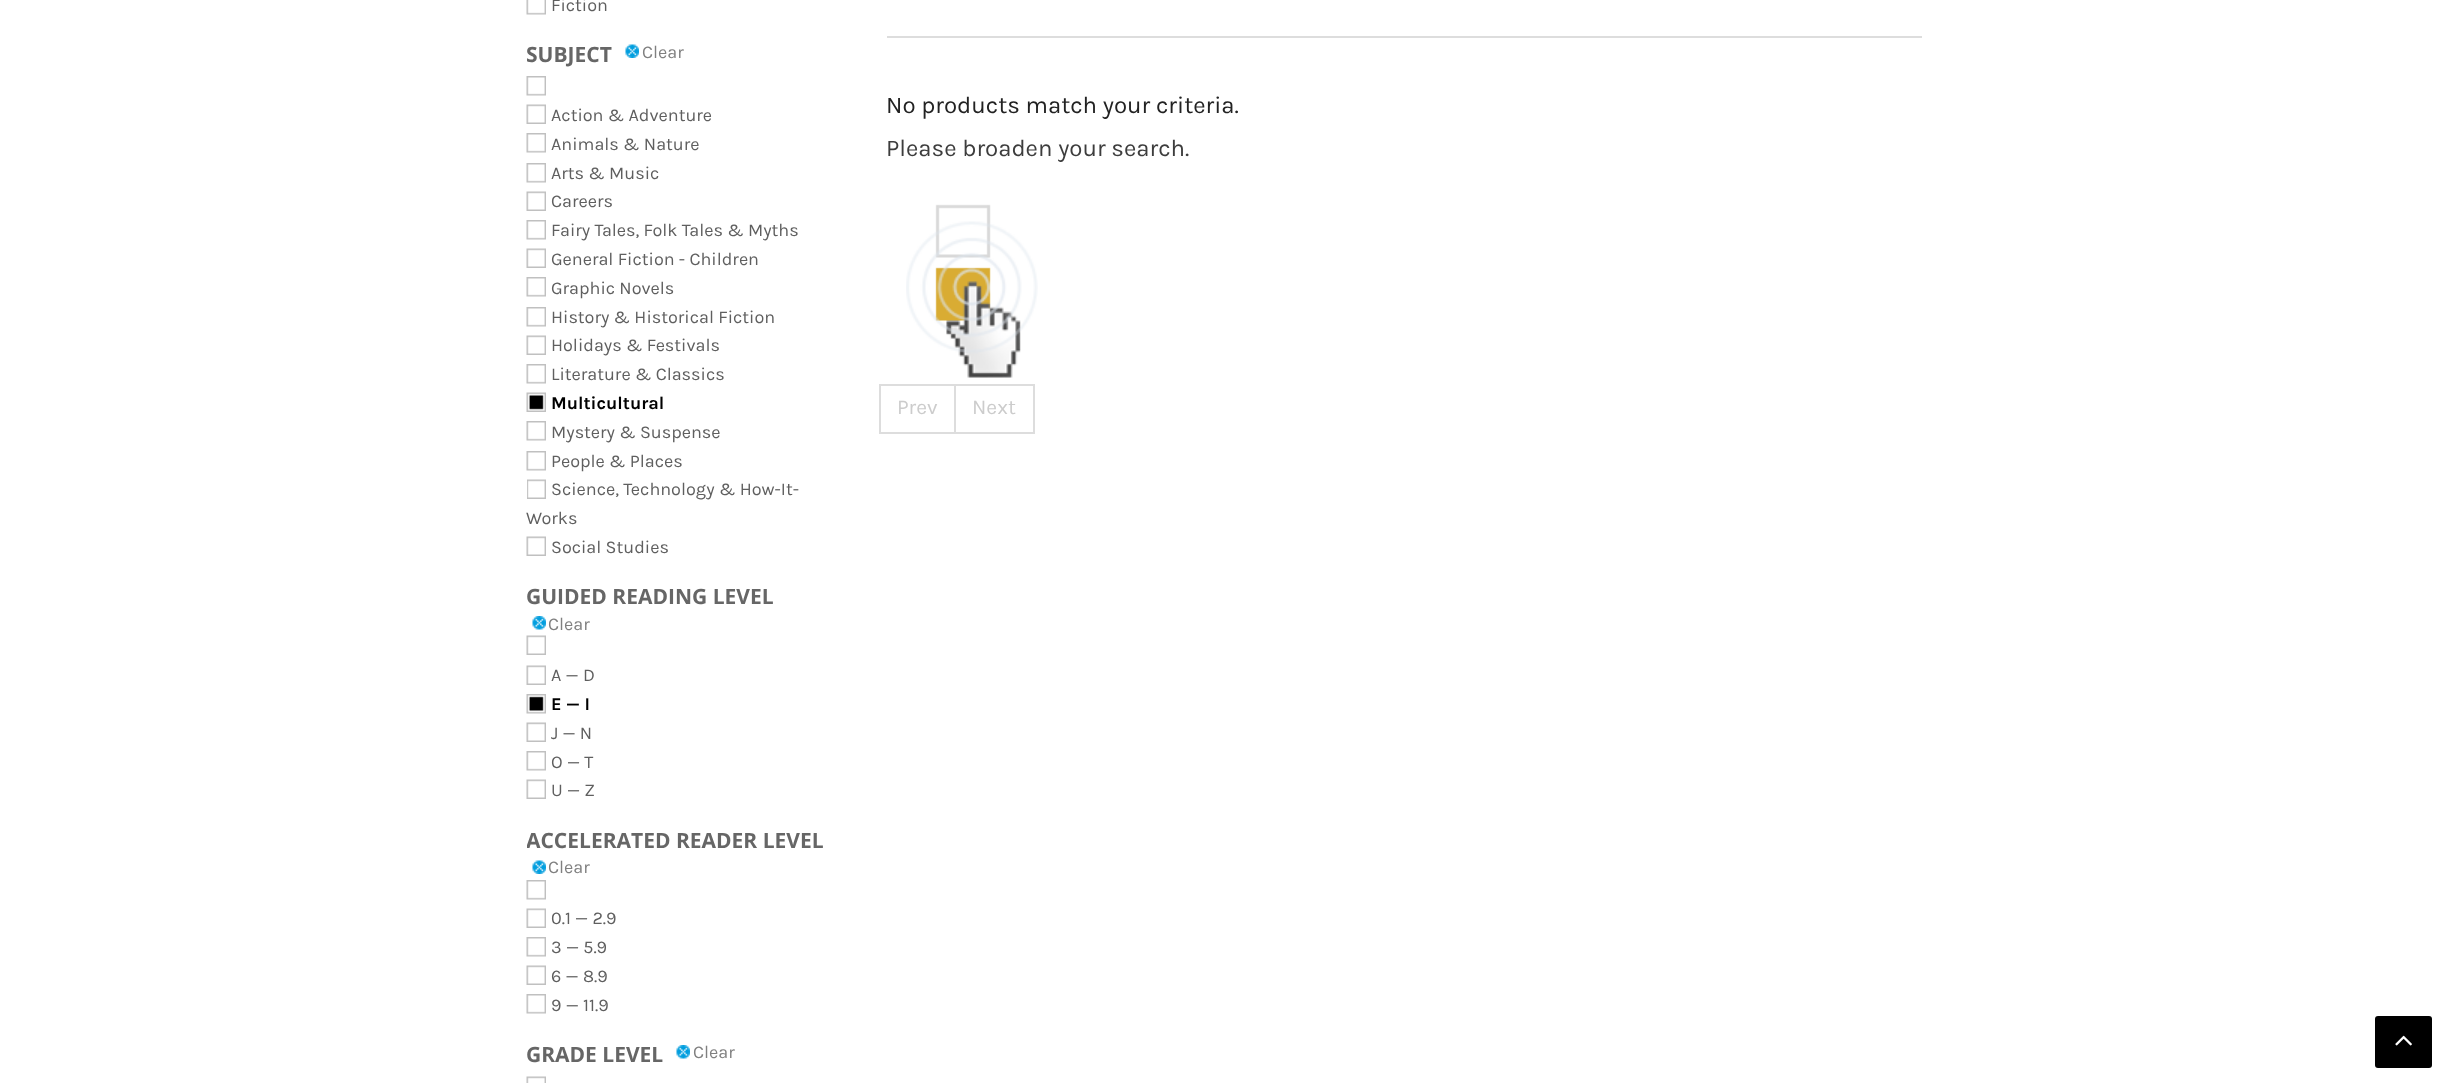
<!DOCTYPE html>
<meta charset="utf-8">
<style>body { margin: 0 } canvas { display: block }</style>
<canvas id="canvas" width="2446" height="1083"></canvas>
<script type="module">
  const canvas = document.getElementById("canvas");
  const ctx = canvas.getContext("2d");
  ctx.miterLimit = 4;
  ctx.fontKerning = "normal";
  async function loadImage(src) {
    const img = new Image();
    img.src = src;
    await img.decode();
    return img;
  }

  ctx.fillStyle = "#ffffff";
  ctx.fillRect(0, 0, 2446, 1083);
  ctx.drawImage(await loadImage("img1.png"), 526, 0, 20, 15);
  ctx.font = "18px Karla";
  ctx.fillStyle = "#5f5f5f";
  ctx.fillText("Fiction", 551, 11);
  ctx.save();
  ctx.beginPath();
  ctx.rect(527, 44, 315, 28);
  ctx.clip();
  ctx.font = "bold 21px Open Sans";
  ctx.fillStyle = "#666666";
  ctx.fillText("SUBJECT", 526, 62);
  ctx.restore();
  ctx.drawImage(await loadImage("img2.png"), 625, 44, 14, 14);
  ctx.fillStyle = "#808080";
  ctx.fillText("Clear", 642, 58);
  ctx.drawImage(await loadImage("img3.png"), 526, 76, 20, 20);
  ctx.drawImage(await loadImage("img4.png"), 526, 104, 20, 20);
  ctx.fillStyle = "#5f5f5f";
  ctx.fillText("Action & Adventure", 551, 121);
  ctx.drawImage(await loadImage("img3.png"), 526, 133, 20, 20);
  ctx.fillText("Animals & Nature", 551, 150);
  ctx.drawImage(await loadImage("img3.png"), 526, 163, 20, 20);
  ctx.fillText("Arts & Music", 551, 179);
  ctx.drawImage(await loadImage("img4.png"), 526, 191, 20, 20);
  ctx.fillText("Careers", 551, 207);
  ctx.drawImage(await loadImage("img3.png"), 526, 220, 20, 20);
  ctx.fillText("Fairy Tales, Folk Tales & Myths", 551, 236);
  ctx.drawImage(await loadImage("img4.png"), 526, 248, 20, 20);
  ctx.fillText("General Fiction - Children", 551, 265);
  ctx.drawImage(await loadImage("img3.png"), 526, 277, 20, 20);
  ctx.fillText("Graphic Novels", 551, 294);
  ctx.drawImage(await loadImage("img3.png"), 526, 307, 20, 20);
  ctx.fillText("History & Historical Fiction", 551, 323);
  ctx.drawImage(await loadImage("img4.png"), 526, 335, 20, 20);
  ctx.fillText("Holidays & Festivals", 551, 351);
  ctx.drawImage(await loadImage("img3.png"), 526, 364, 20, 20);
  ctx.fillText("Literature & Classics", 551, 380);
  ctx.drawImage(await loadImage("img5.png"), 526, 392, 20, 20);
  ctx.font = "bold 18px Karla";
  ctx.fillStyle = "#000000";
  ctx.fillText("Multicultural", 551, 409);
  ctx.drawImage(await loadImage("img3.png"), 526, 421, 20, 20);
  ctx.font = "18px Karla";
  ctx.fillStyle = "#5f5f5f";
  ctx.fillText("Mystery & Suspense", 551, 438);
  ctx.drawImage(await loadImage("img3.png"), 526, 451, 20, 20);
  ctx.fillText("People & Places", 551, 467);
  ctx.drawImage(await loadImage("img6.png"), 527, 479, 19, 20);
  ctx.fillText("Science, Technology & How-It-", 551, 495);
  ctx.fillText("Works", 526, 524);
  ctx.drawImage(await loadImage("img4.png"), 526, 536, 20, 20);
  ctx.fillText("Social Studies", 551, 553);
  ctx.font = "bold 21px Open Sans";
  ctx.fillStyle = "#666666";
  ctx.fillText("GUIDED READING LEVEL", 526, 604);
  ctx.drawImage(await loadImage("img7.png"), 532, 616, 14, 14);
  ctx.font = "18px Karla";
  ctx.fillStyle = "#808080";
  ctx.fillText("Clear", 548, 630);
  ctx.drawImage(await loadImage("img4.png"), 526, 635, 20, 20);
  ctx.drawImage(await loadImage("img4.png"), 526, 665, 20, 20);
  ctx.fillStyle = "#5f5f5f";
  ctx.fillText("A — D", 551, 681);
  ctx.drawImage(await loadImage("img8.png"), 526, 694, 20, 20);
  ctx.font = "bold 18px Karla";
  ctx.fillStyle = "#000000";
  ctx.fillText("E — I", 551, 710);
  ctx.drawImage(await loadImage("img4.png"), 526, 722, 20, 20);
  ctx.font = "18px Karla";
  ctx.fillStyle = "#5f5f5f";
  ctx.fillText("J — N", 551, 739);
  ctx.drawImage(await loadImage("img3.png"), 526, 751, 20, 20);
  ctx.fillText("O — T", 551, 768);
  ctx.drawImage(await loadImage("img4.png"), 526, 779, 20, 20);
  ctx.fillText("U — Z", 551, 796);
  ctx.save();
  ctx.beginPath();
  ctx.rect(527, 828, 315, 48);
  ctx.clip();
  ctx.font = "bold 21px Open Sans";
  ctx.fillStyle = "#666666";
  ctx.fillText("ACCELERATED READER LEVEL", 526, 848);
  ctx.restore();
  ctx.drawImage(await loadImage("img2.png"), 532, 860, 14, 14);
  ctx.fillStyle = "#808080";
  ctx.fillText("Clear", 548, 873);
  ctx.drawImage(await loadImage("img3.png"), 526, 880, 20, 20);
  ctx.drawImage(await loadImage("img4.png"), 526, 908, 20, 20);
  ctx.fillStyle = "#5f5f5f";
  ctx.fillText("0.1 — 2.9", 551, 924);
  ctx.drawImage(await loadImage("img3.png"), 526, 937, 20, 20);
  ctx.fillText("3 — 5.9", 551, 953);
  ctx.drawImage(await loadImage("img4.png"), 526, 965, 20, 20);
  ctx.fillText("6 — 8.9", 551, 982);
  ctx.drawImage(await loadImage("img3.png"), 526, 994, 20, 20);
  ctx.fillText("9 — 11.9", 551, 1011);
  ctx.font = "bold 21px Open Sans";
  ctx.fillStyle = "#666666";
  ctx.fillText("GRADE LEVEL", 526, 1062);
  ctx.drawImage(await loadImage("img7.png"), 676, 1045, 14, 14);
  ctx.font = "18px Karla";
  ctx.fillStyle = "#808080";
  ctx.fillText("Clear", 693, 1058);
  ctx.drawImage(await loadImage("img9.png"), 526, 1076, 20, 7);
  ctx.fillStyle = "#dddddd";
  ctx.fillRect(887, 36, 1035, 2);
  ctx.font = "24px Karla";
  ctx.fillStyle = "#222222";
  ctx.fillText("No products match your criteria.", 886, 113);
  ctx.fillStyle = "#3d3d3d";
  ctx.fillText("Please broaden your search.", 886, 156);
  ctx.drawImage(await loadImage("img10.png"), 906, 204, 132, 174);
  ctx.fillStyle = "#dddddd";
  ctx.fillRect(879, 384, 75, 2);
  ctx.fillRect(879, 432, 75, 2);
  ctx.fillRect(879, 384, 2, 50);
  ctx.font = "21px Karla";
  ctx.fillStyle = "#cccccc";
  ctx.fillText("Prev", 897, 414);
  ctx.strokeStyle = "#dddddd";
  ctx.lineWidth = 2;
  ctx.strokeRect(955, 385, 79, 48);
  ctx.fillText("Next", 972, 414);
  ctx.fillStyle = "#000000";
  ctx.beginPath();
  ctx.roundRect(2375, 1016, 57, 52, 3);
  ctx.fill();
  ctx.drawImage(await loadImage("img11.png"), 2395, 1035, 17, 11);
</script>
